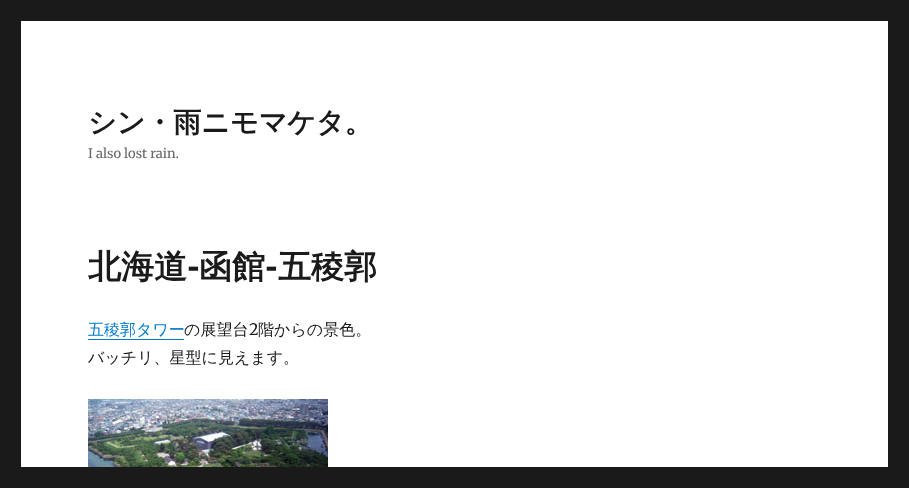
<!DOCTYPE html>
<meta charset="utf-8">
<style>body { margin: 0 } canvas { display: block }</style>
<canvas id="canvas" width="909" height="488"></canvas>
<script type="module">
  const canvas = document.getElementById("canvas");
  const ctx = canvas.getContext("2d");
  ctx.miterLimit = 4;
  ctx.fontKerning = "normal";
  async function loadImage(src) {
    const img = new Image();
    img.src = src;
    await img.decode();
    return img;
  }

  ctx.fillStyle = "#1a1a1a";
  ctx.fillRect(0, 0, 909, 488);
  ctx.fillStyle = "#ffffff";
  ctx.fillRect(21, 21, 867, 446);
  ctx.font = "bold 28px WenQuanYi Zen Hei";
  ctx.fillStyle = "#1a1a1a";
  ctx.fillText("シン・雨ニモマケタ。", 88, 132);
  ctx.font = "13px Merriweather";
  ctx.fillStyle = "#686868";
  ctx.fillText("I also lost rain.", 88, 158);
  ctx.font = "bold 33px WenQuanYi Zen Hei";
  ctx.fillStyle = "#1a1a1a";
  ctx.fillText("北海道", 88, 278);
  ctx.font = "bold 33px Montserrat";
  ctx.fillText("-", 187, 278);
  ctx.font = "bold 33px WenQuanYi Zen Hei";
  ctx.fillText("函館", 199, 278);
  ctx.font = "bold 33px Montserrat";
  ctx.fillText("-", 265, 278);
  ctx.font = "bold 33px WenQuanYi Zen Hei";
  ctx.fillText("五稜郭", 278, 278);
  ctx.font = "500 16px WenQuanYi Zen Hei";
  ctx.fillStyle = "#007acc";
  ctx.fillText("五稜郭タワー", 88, 335);
  ctx.fillRect(88, 339, 96, 1);
  ctx.fillStyle = "#1a1a1a";
  ctx.fillText("の展望台", 184, 335);
  ctx.font = "16px Merriweather";
  ctx.fillText("2", 249, 335);
  ctx.font = "500 16px WenQuanYi Zen Hei";
  ctx.fillText("階からの景色。", 258, 335);
  ctx.fillText("バッチリ、星型に見えます。", 88, 363);
  ctx.drawImage(await loadImage("img1.png"), 88, 399, 240, 68);
</script>
